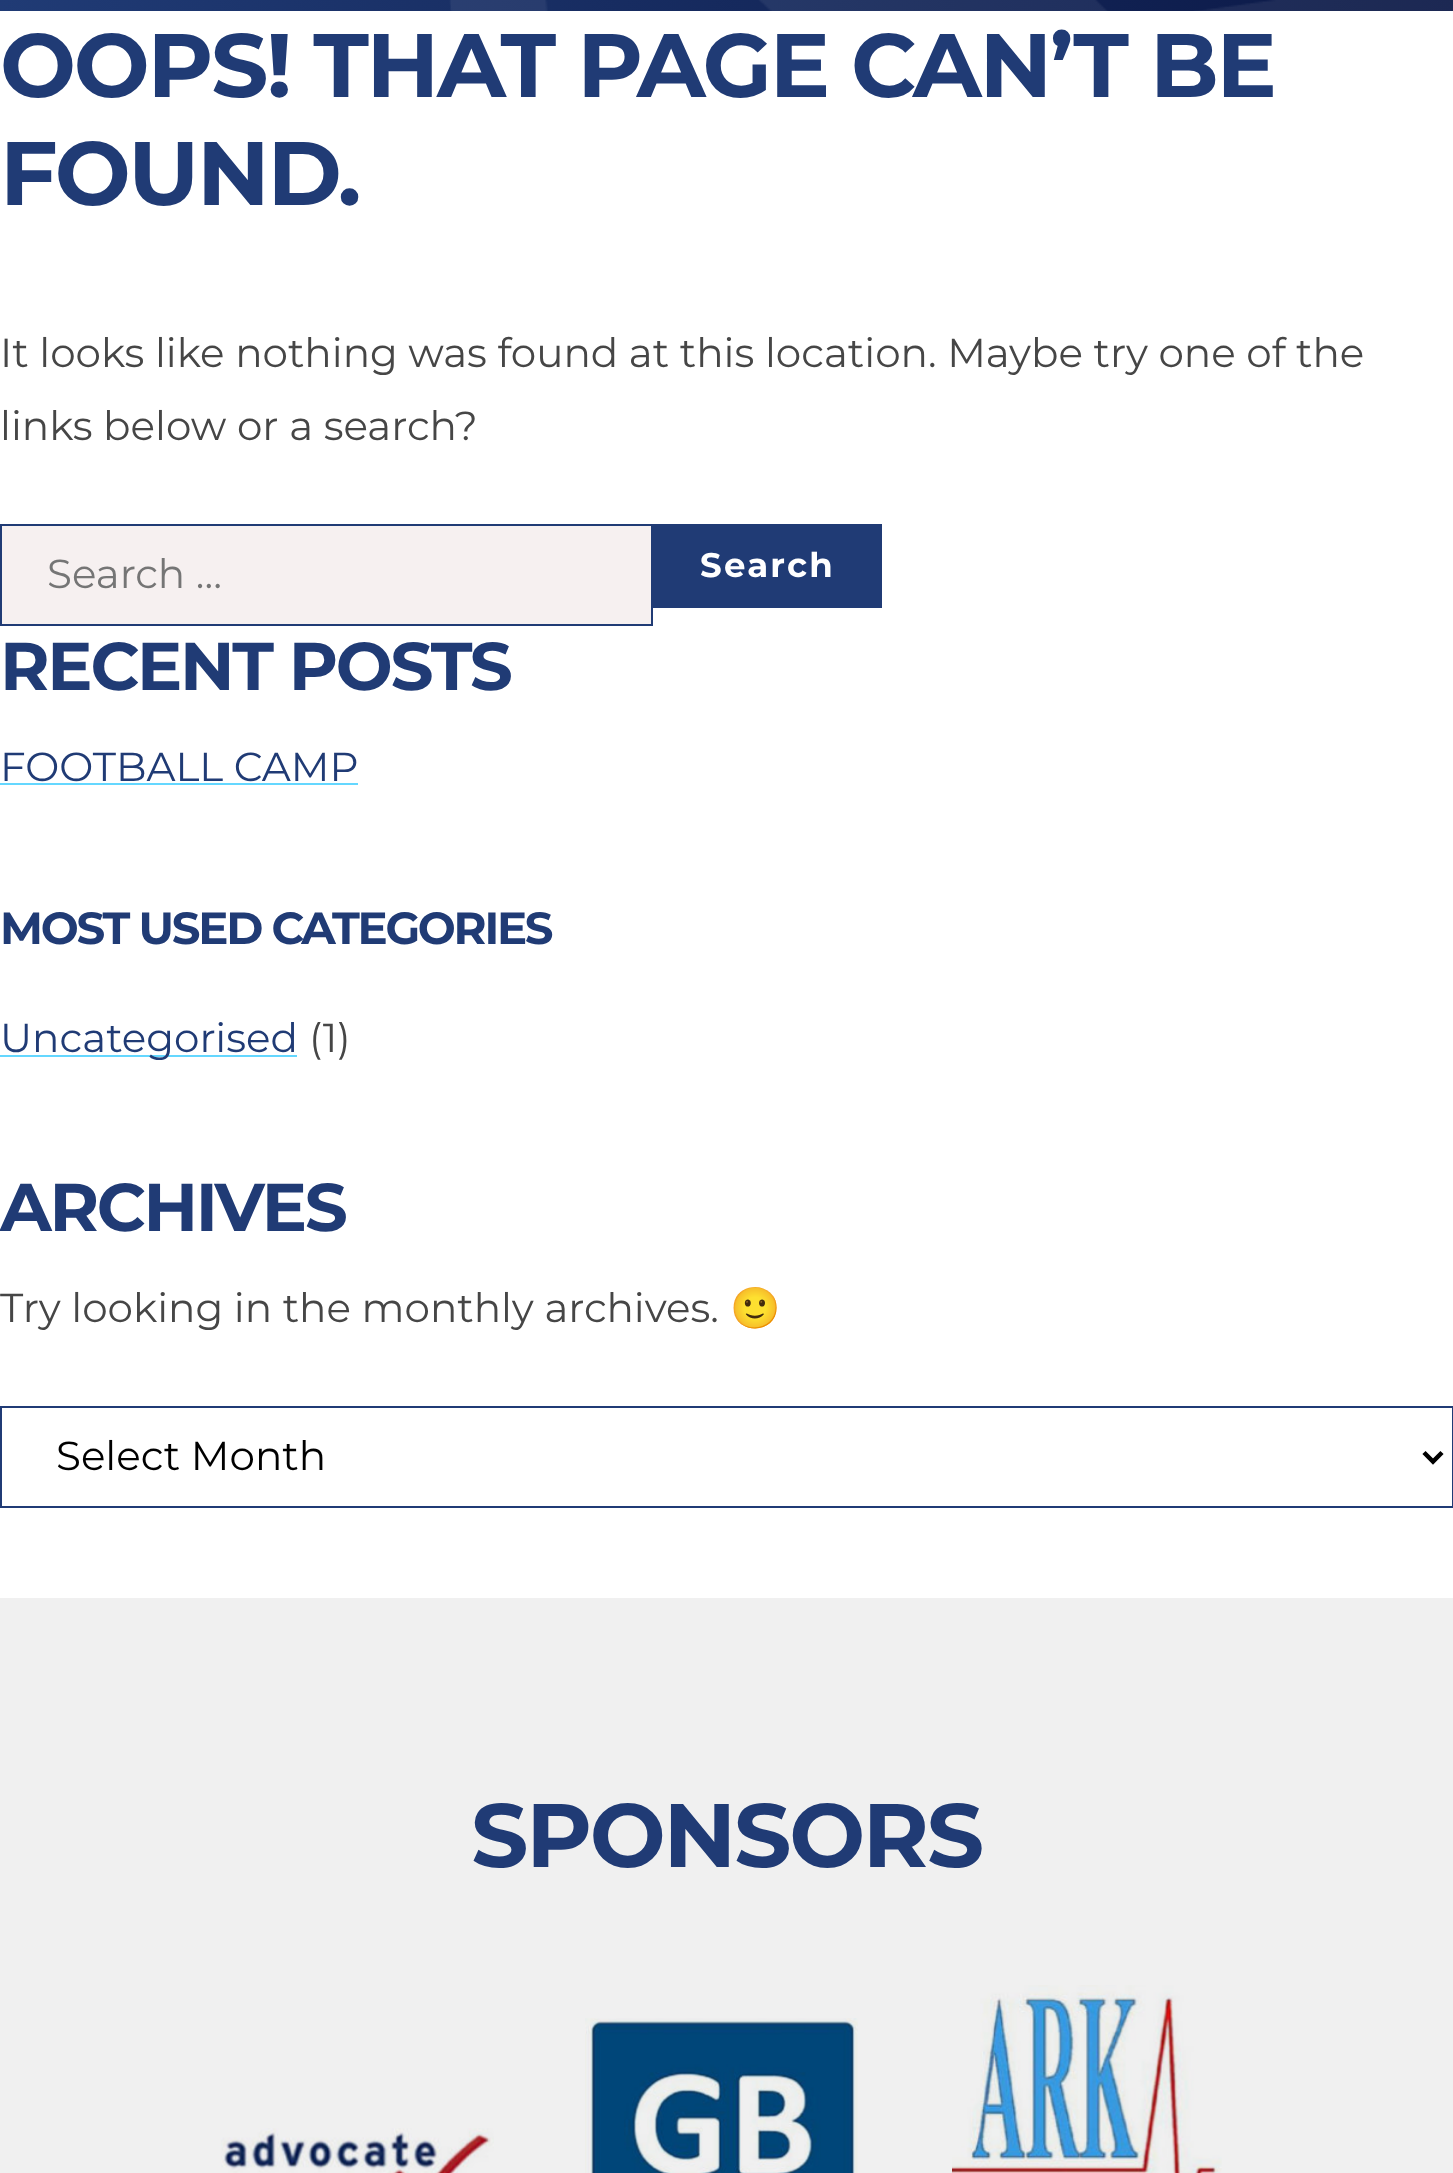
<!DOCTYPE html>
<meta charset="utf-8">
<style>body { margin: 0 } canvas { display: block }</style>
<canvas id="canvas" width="1453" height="2173"></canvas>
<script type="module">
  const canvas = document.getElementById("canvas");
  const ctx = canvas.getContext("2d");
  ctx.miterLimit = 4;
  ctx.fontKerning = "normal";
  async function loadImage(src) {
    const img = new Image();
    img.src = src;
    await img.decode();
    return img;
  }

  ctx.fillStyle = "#ffffff";
  ctx.fillRect(0, 0, 1453, 2173);
  ctx.drawImage(await loadImage("img1.png"), 0, 0, 1453, 11);
  ctx.letterSpacing = "-2.25px";
  ctx.font = "bold 90px Montserrat";
  ctx.fillStyle = "#203b75";
  ctx.fillText("OOPS! THAT PAGE CAN’T BE", 0, 97);
  ctx.fillText("FOUND.", 0, 205);
  ctx.letterSpacing = "0px";
  ctx.font = "40.5px Montserrat";
  ctx.fillStyle = "#464646";
  ctx.fillText("It looks like nothing was found at this location. Maybe try one of the", 0, 367);
  ctx.fillText("links below or a search?", 0, 440);
  ctx.fillStyle = "#f6f0f0";
  ctx.beginPath();
  ctx.rect(1, 525, 651, 100);
  ctx.fill();
  ctx.strokeStyle = "#203b75";
  ctx.lineWidth = 2;
  ctx.stroke();
  ctx.fillStyle = "#757575";
  ctx.fillText("Search …", 47, 588);
  ctx.fillStyle = "#203b75";
  ctx.fillRect(653, 524, 229, 84);
  ctx.letterSpacing = "2.25px";
  ctx.font = "bold 34px Montserrat";
  ctx.fillStyle = "#ffffff";
  ctx.fillText("Search", 700, 577);
  ctx.letterSpacing = "-2.25px";
  ctx.font = "bold 67.5px Montserrat";
  ctx.fillStyle = "#203b75";
  ctx.fillText("RECENT POSTS", 0, 690);
  ctx.letterSpacing = "0px";
  ctx.font = "40.5px Montserrat";
  ctx.fillText("FOOTBALL CAMP", 0, 781);
  ctx.fillStyle = "#64d7ff";
  ctx.fillRect(0, 783, 358, 2);
  ctx.letterSpacing = "-2.25px";
  ctx.font = "bold 45px Montserrat";
  ctx.fillStyle = "#203b75";
  ctx.fillText("MOST USED CATEGORIES", 0, 944);
  ctx.fillStyle = "#64d7ff";
  ctx.fillRect(0, 1055, 297, 2);
  ctx.letterSpacing = "0px";
  ctx.font = "40.5px Montserrat";
  ctx.fillStyle = "#203b75";
  ctx.fillText("Uncategorised", 0, 1052);
  ctx.fillStyle = "#464646";
  ctx.fillText("(1)", 309, 1052);
  ctx.letterSpacing = "-2.25px";
  ctx.font = "bold 67.5px Montserrat";
  ctx.fillStyle = "#203b75";
  ctx.fillText("ARCHIVES", 0, 1231);
  ctx.letterSpacing = "0px";
  ctx.font = "40.5px Montserrat";
  ctx.fillStyle = "#464646";
  ctx.fillText("Try looking in the monthly archives.", 0, 1322);
  ctx.font = "40.5px Noto Color Emoji";
  ctx.fillText("🙂", 730, 1322);
  ctx.strokeRect(1, 1407, 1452, 100);
  ctx.beginPath();
  ctx.moveTo(1424, 1452.5);
  ctx.lineTo(1433, 1461.5);
  ctx.lineTo(1442, 1452.5);
  ctx.strokeStyle = "#000000";
  ctx.lineWidth = 4.5;
  ctx.stroke();
  ctx.font = "40.5px Montserrat";
  ctx.fillStyle = "#000000";
  ctx.fillText("Select Month", 56, 1470);
  ctx.fillStyle = "#f0f0f0";
  ctx.fillRect(0, 1598, 1453, 575);
  ctx.letterSpacing = "-2.25px";
  ctx.font = "bold 90px Montserrat";
  ctx.fillStyle = "#203b75";
  ctx.fillText("SPONSORS", 471, 1867);
  ctx.drawImage(await loadImage("img2.png"), 221, 2128, 273, 45);
  ctx.drawImage(await loadImage("img3.png"), 585, 2018, 273, 155);
  ctx.drawImage(await loadImage("img4.png"), 952, 1985, 270, 188);
</script>
